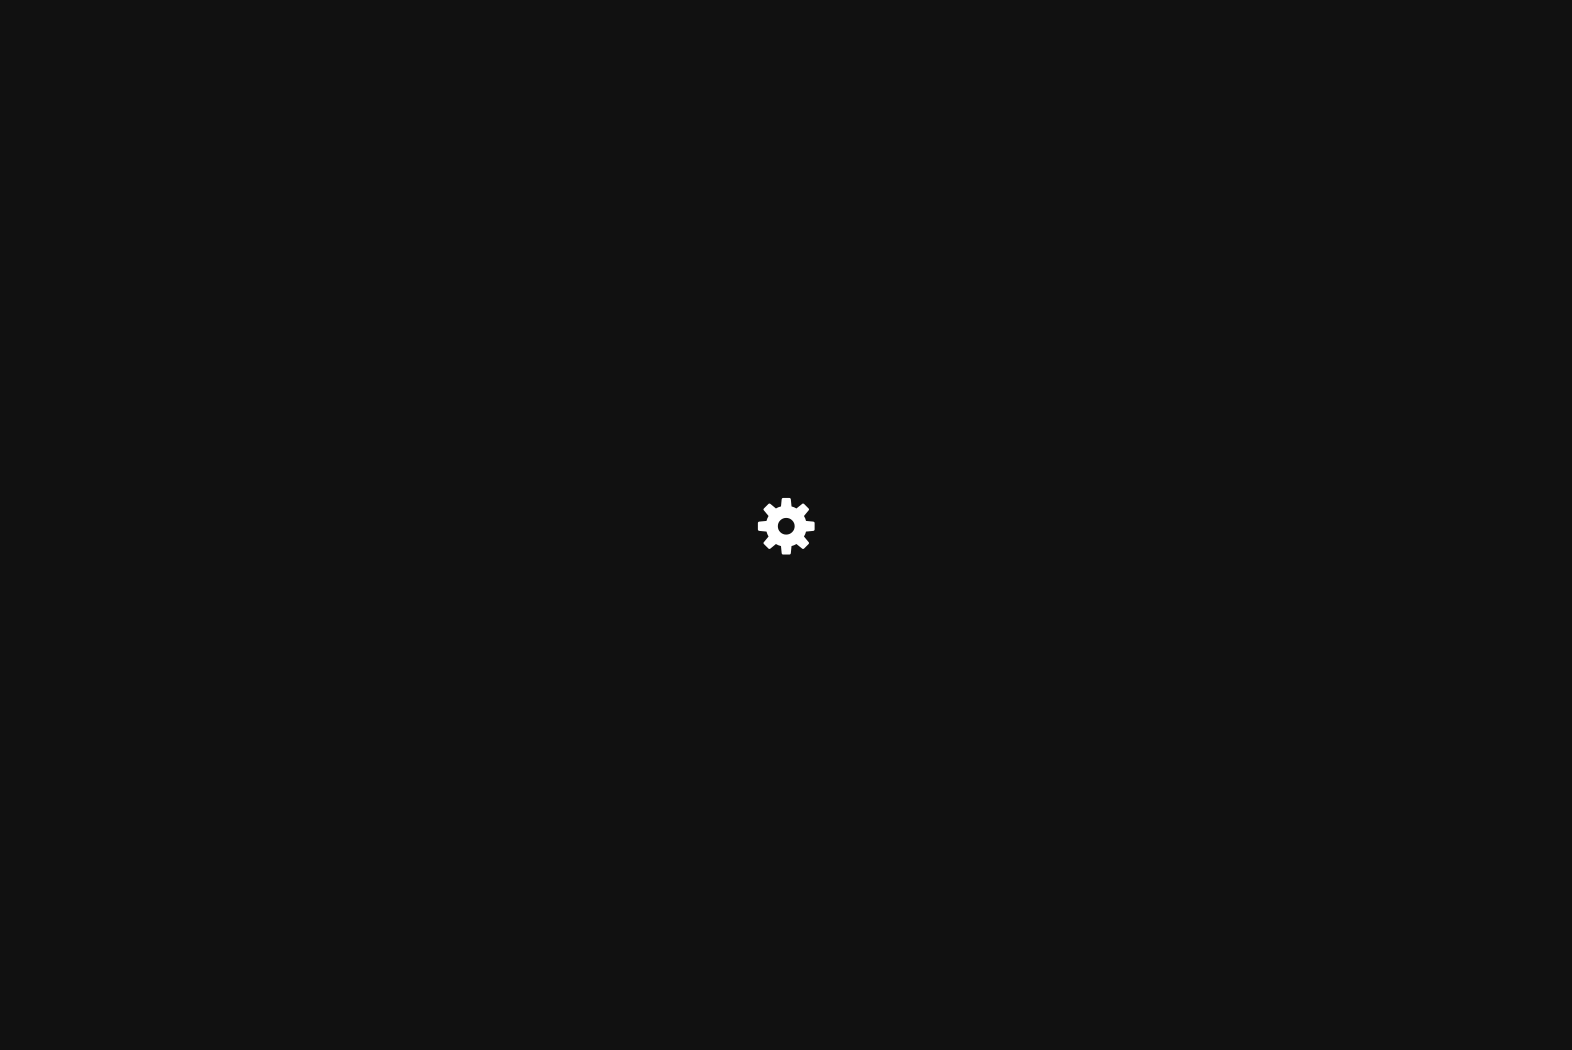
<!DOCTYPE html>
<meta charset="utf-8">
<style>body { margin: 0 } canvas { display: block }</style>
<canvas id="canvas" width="1572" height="1050"></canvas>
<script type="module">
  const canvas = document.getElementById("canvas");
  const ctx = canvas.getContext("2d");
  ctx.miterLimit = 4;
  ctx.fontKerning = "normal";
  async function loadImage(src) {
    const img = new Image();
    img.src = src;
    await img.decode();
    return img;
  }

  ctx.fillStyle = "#111111";
  ctx.fillRect(0, 0, 1572, 1050);
  ctx.drawImage(await loadImage("img1.png"), 757, 497, 58, 58);
</script>
